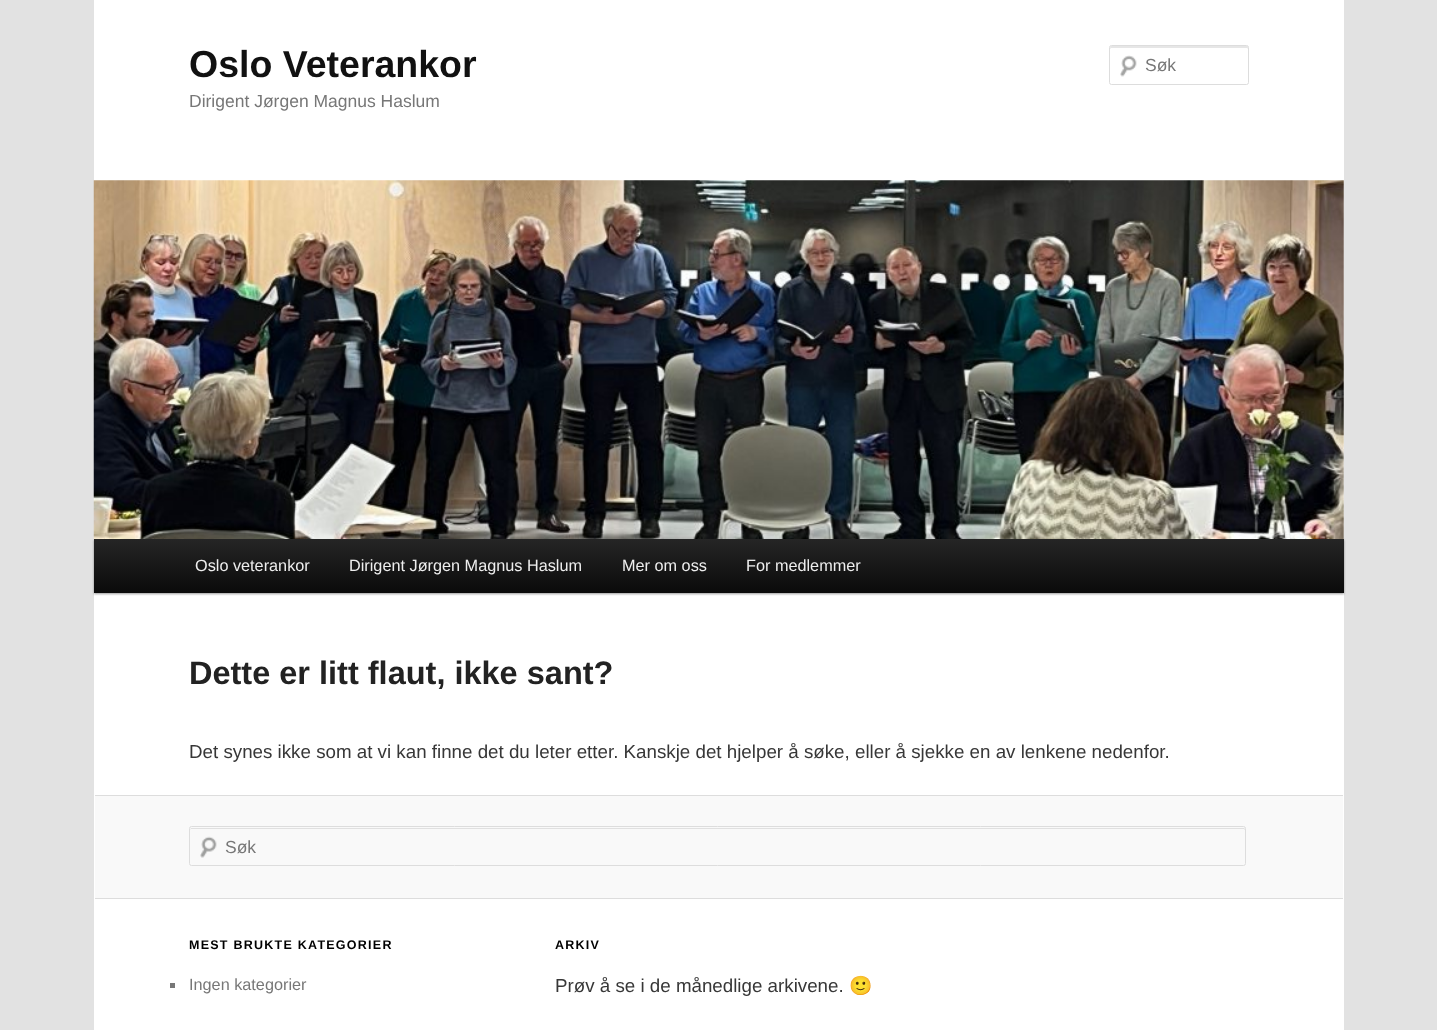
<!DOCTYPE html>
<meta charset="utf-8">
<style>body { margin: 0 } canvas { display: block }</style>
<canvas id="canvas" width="1437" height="1030"></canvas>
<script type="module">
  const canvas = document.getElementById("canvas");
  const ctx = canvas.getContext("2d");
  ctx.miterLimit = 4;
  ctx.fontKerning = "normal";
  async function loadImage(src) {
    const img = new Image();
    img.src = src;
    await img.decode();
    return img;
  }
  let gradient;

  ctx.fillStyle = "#e2e2e2";
  ctx.fillRect(0, 0, 1437, 1030);
  ctx.fillStyle = "#ffffff";
  ctx.fillRect(94, 0, 1250, 1030);
  ctx.font = "bold 37.5px Liberation Sans";
  ctx.fillStyle = "#111111";
  ctx.fillText("Oslo Veterankor", 189, 77);
  ctx.font = "17.5px Liberation Sans";
  ctx.fillStyle = "#777777";
  ctx.fillText("Dirigent Jørgen Magnus Haslum", 189, 107);
  ctx.drawImage(await loadImage("img1.png"), 1120, 55, 17, 22);
  ctx.fillStyle = "#e6e6e6";
  ctx.beginPath();
  ctx.moveTo(1111, 48);
  ctx.lineTo(1246, 48);
  ctx.bezierCurveTo(1247, 48, 1248, 48, 1248, 49);
  ctx.bezierCurveTo(1248, 48, 1248, 46, 1247, 46);
  ctx.lineTo(1111, 46);
  ctx.bezierCurveTo(1110, 47, 1110, 48, 1110, 49);
  ctx.closePath();
  ctx.fill();
  ctx.beginPath();
  ctx.roundRect(1109.5, 45.5, 139, 39, 2);
  ctx.strokeStyle = "#dddddd";
  ctx.stroke();
  ctx.fillStyle = "#777777";
  ctx.fillText("Søk", 1145, 71);
  ctx.fillStyle = "rgba(0, 0, 0, 0.4)";
  ctx.filter = "blur(1px)";
  ctx.beginPath();
  ctx.rect(94, 540, 1250, 54);
  ctx.fill();
  ctx.filter = "none";
  ctx.drawImage(await loadImage("img2.png"), 93, 180, 1251, 359);
  gradient = ctx.createLinearGradient(719, 539, 719, 593);
  gradient.addColorStop(0, "#252525");
  gradient.addColorStop(1, "#0a0a0a");
  ctx.fillStyle = gradient;
  ctx.fillRect(94, 539, 1250, 54);
  ctx.font = "16.25px Liberation Sans";
  ctx.fillStyle = "#eeeeee";
  ctx.fillText("Oslo veterankor", 195, 571);
  ctx.fillText("Dirigent Jørgen Magnus Haslum", 349, 571);
  ctx.fillText("Mer om oss", 622, 571);
  ctx.fillText("For medlemmer", 746, 571);
  ctx.font = "bold 32.5px Liberation Sans";
  ctx.fillStyle = "#222222";
  ctx.fillText("Dette er litt flaut, ikke sant?", 189, 684);
  ctx.font = "18.75px Liberation Sans";
  ctx.fillStyle = "#373737";
  ctx.fillText("Det synes ikke som at vi kan finne det du leter etter. Kanskje det hjelper å søke, eller å sjekke en av lenkene nedenfor.", 189, 758);
  ctx.fillStyle = "#f9f9f9";
  ctx.fillRect(95, 796, 1248, 102);
  ctx.fillStyle = "#dddddd";
  ctx.fillRect(95, 795, 1248, 1);
  ctx.fillRect(95, 898, 1248, 1);
  ctx.drawImage(await loadImage("img3.png"), 200, 836, 17, 22);
  ctx.fillStyle = "#e0e0e0";
  ctx.beginPath();
  ctx.moveTo(191, 829);
  ctx.lineTo(1244, 829);
  ctx.lineTo(1245, 830);
  ctx.lineTo(1245, 829);
  ctx.lineTo(1244, 828);
  ctx.lineTo(191, 828);
  ctx.lineTo(190, 830);
  ctx.closePath();
  ctx.fill();
  ctx.beginPath();
  ctx.roundRect(189.5, 826.5, 1056, 39, 2);
  ctx.stroke();
  ctx.font = "17.5px Liberation Sans";
  ctx.fillStyle = "#777777";
  ctx.fillText("Søk", 225, 853);
  ctx.letterSpacing = "1.25px";
  ctx.font = "bold 12.5px Liberation Sans";
  ctx.fillStyle = "#000000";
  ctx.fillText("MEST BRUKTE KATEGORIER", 189, 949);
  ctx.fillStyle = "#777777";
  ctx.fillRect(170, 983, 5, 5);
  ctx.letterSpacing = "0px";
  ctx.font = "16.25px Liberation Sans";
  ctx.fillText("Ingen kategorier", 189, 990);
  ctx.letterSpacing = "1.25px";
  ctx.font = "bold 12.5px Liberation Sans";
  ctx.fillStyle = "#000000";
  ctx.fillText("ARKIV", 555, 949);
  ctx.letterSpacing = "0px";
  ctx.font = "18.75px Liberation Sans";
  ctx.fillStyle = "#373737";
  ctx.fillText("Prøv å se i de månedlige arkivene.", 555, 992);
  ctx.font = "18.75px Noto Color Emoji";
  ctx.fillText("🙂", 849, 992);
</script>
